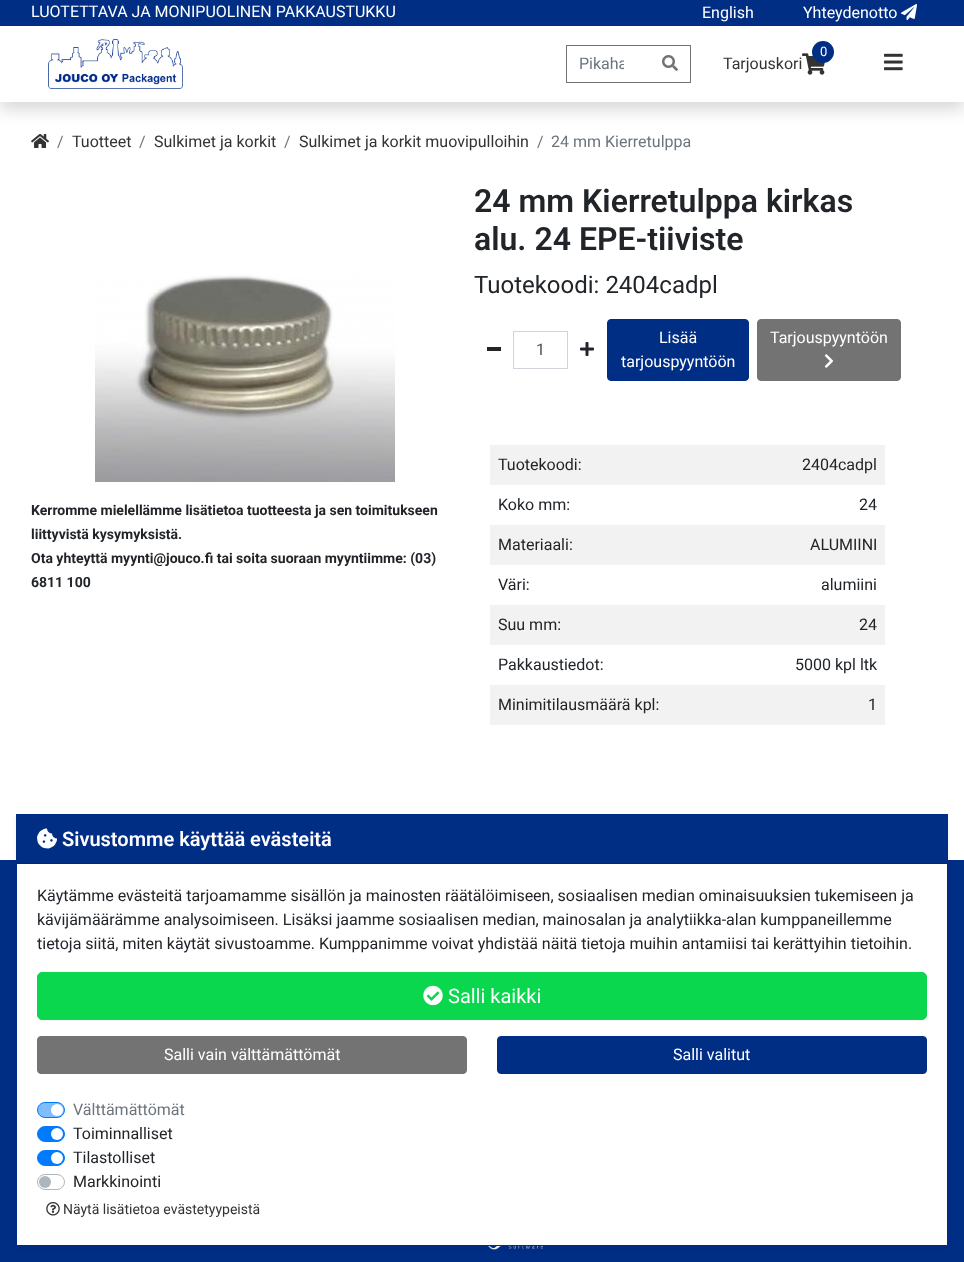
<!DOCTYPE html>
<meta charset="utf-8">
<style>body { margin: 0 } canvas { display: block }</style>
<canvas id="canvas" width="964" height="1262"></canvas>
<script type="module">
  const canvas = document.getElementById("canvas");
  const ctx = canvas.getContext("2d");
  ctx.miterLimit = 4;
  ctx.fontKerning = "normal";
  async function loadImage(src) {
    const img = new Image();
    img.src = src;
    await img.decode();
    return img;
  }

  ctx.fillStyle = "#ffffff";
  ctx.fillRect(0, 0, 964, 1262);
  ctx.drawImage(await loadImage("img6.png"), 31, 134, 18, 14);
  ctx.fillStyle = "rgba(0, 0, 0, 0.15)";
  ctx.filter = "blur(8px)";
  ctx.beginPath();
  ctx.rect(0, 8, 964, 102);
  ctx.fill();
  ctx.filter = "none";
  ctx.fillStyle = "#002e85";
  ctx.fillRect(0, 0, 964, 26);
  ctx.font = "16px Roboto";
  ctx.fillStyle = "#ffffff";
  ctx.fillText("LUOTETTAVA JA MONIPUOLINEN PAKKAUSTUKKU", 31, 17);
  ctx.fillText("English", 702, 18);
  ctx.fillText("Yhteydenotto", 803, 18);
  ctx.drawImage(await loadImage("img1.png"), 901, 4, 16, 16);
  ctx.fillRect(0, 26, 964, 76);
  ctx.drawImage(await loadImage("img2.png"), 48, 39, 135, 50);
  ctx.fillStyle = "#737373";
  ctx.fillRect(566, 45, 125, 1);
  ctx.fillRect(566, 82, 85, 1);
  ctx.fillRect(566, 45, 1, 38);
  ctx.save();
  ctx.beginPath();
  ctx.rect(579, 54, 45, 19);
  ctx.clip();
  ctx.fillStyle = "#6c757d";
  ctx.fillText("Pikaha", 579, 69);
  ctx.restore();
  ctx.fillRect(690, 45, 1, 38);
  ctx.fillRect(650, 82, 41, 1);
  ctx.drawImage(await loadImage("img3.png"), 662, 55, 16, 16);
  ctx.drawImage(await loadImage("img4.png"), 802, 53, 23, 22);
  ctx.fillStyle = "#002e85";
  ctx.beginPath();
  ctx.arc(823, 52, 11, 0, Math.PI * 2);
  ctx.fill();
  ctx.font = "13px Roboto";
  ctx.fillStyle = "#ffffff";
  ctx.fillText("0", 820, 56);
  ctx.font = "16px Roboto";
  ctx.fillStyle = "#333333";
  ctx.fillText("Tarjouskori", 723, 69);
  ctx.drawImage(await loadImage("img5.png"), 884, 53, 19, 18);
  ctx.fillStyle = "#6c757d";
  ctx.fillText("/", 57, 147);
  ctx.fillStyle = "#333333";
  ctx.fillText("Tuotteet", 72, 147);
  ctx.fillStyle = "#6c757d";
  ctx.fillText("/", 139, 147);
  ctx.fillStyle = "#333333";
  ctx.fillText("Sulkimet ja korkit", 154, 147);
  ctx.fillStyle = "#6c757d";
  ctx.fillText("/", 284, 147);
  ctx.fillStyle = "#333333";
  ctx.fillText("Sulkimet ja korkit muovipulloihin", 299, 147);
  ctx.fillStyle = "#6c757d";
  ctx.fillText("/", 537, 147);
  ctx.fillText("24 mm Kierretulppa", 551, 147);
  ctx.font = "600 32px Roboto";
  ctx.fillStyle = "#212529";
  ctx.fillText("24 mm Kierretulppa kirkas", 474, 212);
  ctx.fillText("alu. 24 EPE-tiiviste", 474, 250);
  ctx.font = "24px Roboto";
  ctx.fillText("Tuotekoodi: 2404cadpl", 474, 293);
  ctx.fillStyle = "#002e85";
  ctx.beginPath();
  ctx.roundRect(607.5, 319.5, 141, 61, 3.5);
  ctx.fill();
  ctx.strokeStyle = "#002e85";
  ctx.stroke();
  ctx.font = "16px Roboto";
  ctx.fillStyle = "#ffffff";
  ctx.fillText("Lisää", 659, 343);
  ctx.fillText("tarjouspyyntöön", 621, 367);
  ctx.fillStyle = "#737373";
  ctx.beginPath();
  ctx.roundRect(757.5, 319.5, 143, 61, 3.5);
  ctx.fill();
  ctx.strokeStyle = "#737373";
  ctx.stroke();
  ctx.fillStyle = "#ffffff";
  ctx.fillText("Tarjouspyyntöön", 770, 343);
  ctx.drawImage(await loadImage("img7.png"), 824, 354, 9, 14);
  ctx.fillStyle = "#212529";
  ctx.fillRect(487, 347, 14, 4);
  ctx.strokeStyle = "#ced4da";
  ctx.strokeRect(513.5, 331.5, 54, 37);
  ctx.fillStyle = "#495057";
  ctx.fillText("1", 536, 355);
  ctx.drawImage(await loadImage("img8.png"), 580, 342, 14, 14);
  ctx.drawImage(await loadImage("img9.png"), 95, 274, 300, 208);
  ctx.font = "bold 14px Roboto";
  ctx.fillStyle = "#212529";
  ctx.fillText("Kerromme mielellämme lisätietoa tuotteesta ja sen toimitukseen", 31, 515);
  ctx.fillText("liittyvistä kysymyksistä.", 31, 539);
  ctx.fillText("Ota yhteyttä myynti@jouco.fi tai soita suoraan myyntiimme: (03)", 31, 563);
  ctx.fillText("6811 100", 31, 587);
  ctx.fillStyle = "#f2f2f2";
  ctx.fillRect(490, 445, 395, 40);
  ctx.font = "16px Roboto";
  ctx.fillStyle = "#212529";
  ctx.fillText("Tuotekoodi:", 498, 470);
  ctx.fillText("2404cadpl", 802, 470);
  ctx.fillText("Koko mm:", 498, 510);
  ctx.fillText("24", 859, 510);
  ctx.fillStyle = "#f2f2f2";
  ctx.fillRect(490, 525, 395, 40);
  ctx.fillStyle = "#212529";
  ctx.fillText("Materiaali:", 498, 550);
  ctx.fillText("ALUMIINI", 810, 550);
  ctx.fillText("Väri:", 498, 590);
  ctx.fillText("alumiini", 821, 590);
  ctx.fillStyle = "#f2f2f2";
  ctx.fillRect(490, 605, 395, 40);
  ctx.fillStyle = "#212529";
  ctx.fillText("Suu mm:", 498, 630);
  ctx.fillText("24", 859, 630);
  ctx.fillText("Pakkaustiedot:", 498, 670);
  ctx.fillText("5000 kpl ltk", 795, 670);
  ctx.fillStyle = "#f2f2f2";
  ctx.fillRect(490, 685, 395, 40);
  ctx.fillStyle = "#212529";
  ctx.fillText("Minimitilausmäärä kpl:", 498, 710);
  ctx.fillText("1", 868, 710);
  ctx.fillStyle = "#002e85";
  ctx.fillRect(0, 860, 964, 402);
  ctx.drawImage(await loadImage("img13.png"), 488, 1246, 55, 4);
  ctx.fillStyle = "rgba(0, 0, 0, 0.07)";
  ctx.filter = "blur(2px)";
  ctx.beginPath();
  ctx.rect(16, 816, 932, 432);
  ctx.fill();
  ctx.filter = "none";
  ctx.fillStyle = "#ffffff";
  ctx.fillRect(17, 864, 930, 381);
  ctx.strokeStyle = "#002e85";
  ctx.strokeRect(16.5, 814.5, 931, 431);
  ctx.fillStyle = "#002e85";
  ctx.fillRect(17, 815, 930, 48);
  ctx.fillStyle = "#002874";
  ctx.fillRect(17, 863, 930, 1);
  ctx.drawImage(await loadImage("img10.png"), 37, 828, 20, 21);
  ctx.font = "600 20px Roboto";
  ctx.fillStyle = "#ffffff";
  ctx.fillText("Sivustomme käyttää evästeitä", 62, 846);
  ctx.font = "16px Roboto";
  ctx.fillStyle = "#212529";
  ctx.fillText("Käytämme evästeitä tarjoamamme sisällön ja mainosten räätälöimiseen, sosiaalisen median ominaisuuksien tukemiseen ja", 37, 901);
  ctx.fillText("kävijämäärämme analysoimiseen. Lisäksi jaamme sosiaalisen median, mainosalan ja analytiikka-alan kumppaneillemme", 37, 925);
  ctx.fillText("tietoja siitä, miten käytät sivustoamme. Kumppanimme voivat yhdistää näitä tietoja muihin antamiisi tai kerättyihin tietoihin.", 37, 949);
  ctx.fillStyle = "#0ad64e";
  ctx.beginPath();
  ctx.roundRect(37.5, 972.5, 889, 47, 4.5);
  ctx.fill();
  ctx.strokeStyle = "#0ad64e";
  ctx.stroke();
  ctx.drawImage(await loadImage("img11.png"), 423, 985, 20, 21);
  ctx.font = "20px Roboto";
  ctx.fillStyle = "#ffffff";
  ctx.fillText("Salli kaikki", 448, 1003);
  ctx.fillStyle = "#737373";
  ctx.beginPath();
  ctx.roundRect(37.5, 1036.5, 429, 37, 3.5);
  ctx.fill();
  ctx.strokeStyle = "#737373";
  ctx.stroke();
  ctx.font = "16px Roboto";
  ctx.fillStyle = "#ffffff";
  ctx.fillText("Salli vain välttämättömät", 164, 1060);
  ctx.fillStyle = "#002e85";
  ctx.beginPath();
  ctx.roundRect(497.5, 1036.5, 429, 37, 3.5);
  ctx.fill();
  ctx.strokeStyle = "#002e85";
  ctx.stroke();
  ctx.fillStyle = "#ffffff";
  ctx.fillText("Salli valitut", 673, 1060);
  ctx.fillStyle = "#80bdff";
  ctx.beginPath();
  ctx.roundRect(37.5, 1102.5, 27, 15, 7.5);
  ctx.fill();
  ctx.strokeStyle = "#007bff";
  ctx.stroke();
  ctx.fillStyle = "#6c757d";
  ctx.fillText("Välttämättömät", 73, 1115);
  ctx.fillStyle = "#ffffff";
  ctx.beginPath();
  ctx.arc(57, 1110, 6, 0, Math.PI * 2);
  ctx.fill();
  ctx.fillStyle = "#007bff";
  ctx.beginPath();
  ctx.roundRect(37.5, 1126.5, 27, 15, 7.5);
  ctx.fill();
  ctx.stroke();
  ctx.fillStyle = "#212529";
  ctx.fillText("Toiminnalliset", 73, 1139);
  ctx.fillStyle = "#ffffff";
  ctx.beginPath();
  ctx.arc(57, 1134, 6, 0, Math.PI * 2);
  ctx.fill();
  ctx.fillStyle = "#007bff";
  ctx.beginPath();
  ctx.roundRect(37.5, 1150.5, 27, 15, 7.5);
  ctx.fill();
  ctx.stroke();
  ctx.fillStyle = "#212529";
  ctx.fillText("Tilastolliset", 73, 1163);
  ctx.fillStyle = "#ffffff";
  ctx.beginPath();
  ctx.arc(57, 1158, 6, 0, Math.PI * 2);
  ctx.fill();
  ctx.beginPath();
  ctx.roundRect(37.5, 1174.5, 27, 15, 7.5);
  ctx.strokeStyle = "#adb5bd";
  ctx.stroke();
  ctx.fillStyle = "#212529";
  ctx.fillText("Markkinointi", 73, 1187);
  ctx.fillStyle = "#adb5bd";
  ctx.beginPath();
  ctx.arc(45, 1182, 6, 0, Math.PI * 2);
  ctx.fill();
  ctx.drawImage(await loadImage("img12.png"), 46, 1202, 14, 14);
  ctx.font = "14px Roboto";
  ctx.fillStyle = "#333333";
  ctx.fillText("Näytä lisätietoa evästetyypeistä", 63, 1214);
</script>
